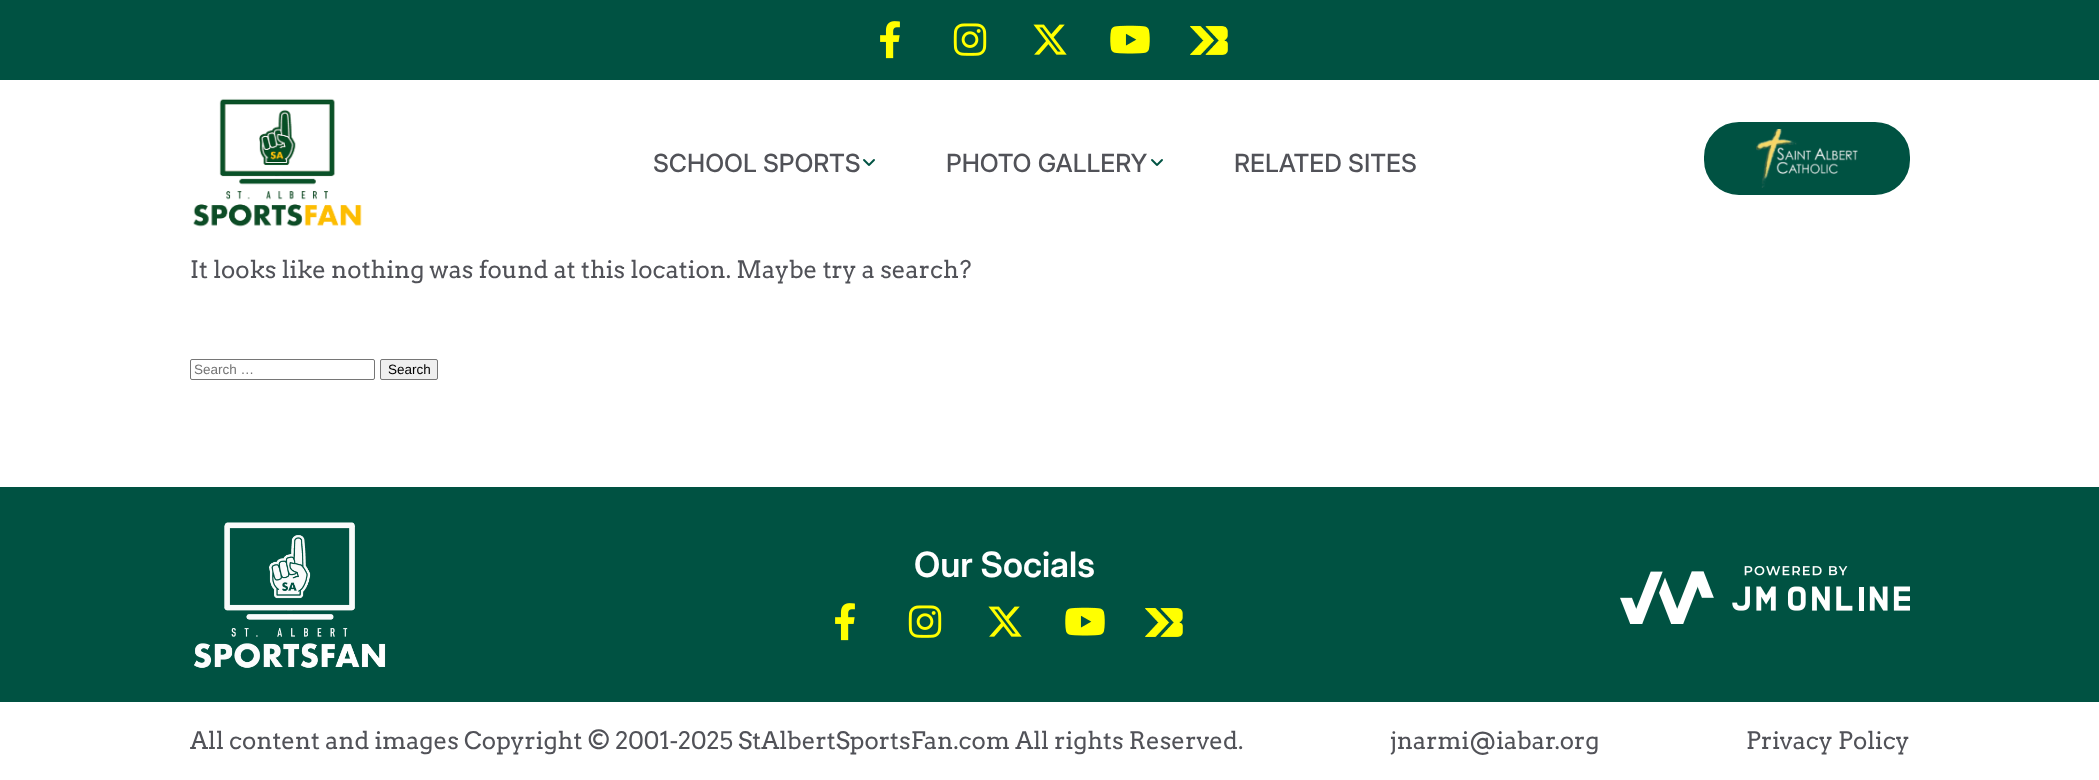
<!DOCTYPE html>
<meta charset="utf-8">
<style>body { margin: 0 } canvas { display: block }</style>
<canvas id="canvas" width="2099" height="780"></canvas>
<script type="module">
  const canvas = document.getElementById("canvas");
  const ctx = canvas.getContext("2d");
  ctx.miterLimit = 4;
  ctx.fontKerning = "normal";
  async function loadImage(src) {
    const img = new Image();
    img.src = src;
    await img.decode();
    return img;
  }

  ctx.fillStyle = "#ffffff";
  ctx.fillRect(0, 0, 2099, 780);
  ctx.fillStyle = "#005242";
  ctx.fillRect(0, 0, 2099, 80);
  ctx.drawImage(await loadImage("img1.png"), 880, 21, 20, 38);
  ctx.drawImage(await loadImage("img2.png"), 953, 23, 34, 33);
  ctx.drawImage(await loadImage("img3.png"), 1033, 24, 34, 31);
  ctx.drawImage(await loadImage("img4.png"), 1110, 25, 40, 29);
  ctx.drawImage(await loadImage("img5.png"), 1190, 26, 38, 29);
  ctx.drawImage(await loadImage("img6.png"), 193, 98, 169, 129);
  ctx.font = "500 25px Inter";
  ctx.fillStyle = "#515258";
  ctx.fillText("SCHOOL SPORTS", 653, 172);
  ctx.drawImage(await loadImage("img7.png"), 863, 159, 12, 7);
  ctx.fillText("PHOTO GALLERY", 946, 172);
  ctx.drawImage(await loadImage("img7.png"), 1151, 159, 12, 7);
  ctx.fillText("RELATED SITES", 1234, 172);
  ctx.fillStyle = "#005242";
  ctx.beginPath();
  ctx.roundRect(1705, 123, 204, 71, 34);
  ctx.fill();
  ctx.strokeStyle = "#005242";
  ctx.lineWidth = 2;
  ctx.stroke();
  ctx.drawImage(await loadImage("img8.png"), 1756, 129, 102, 59);
  ctx.font = "24px Arvo";
  ctx.fillStyle = "#515258";
  ctx.fillText("It looks like nothing was found at this location. Maybe try a search?", 190, 278);
  ctx.beginPath();
  ctx.roundRect(190.5, 359.5, 184, 20, 1.5);
  ctx.strokeStyle = "#767676";
  ctx.lineWidth = 1;
  ctx.stroke();
  ctx.font = "13.5px Liberation Sans";
  ctx.fillStyle = "#757575";
  ctx.fillText("Search …", 194, 374);
  ctx.fillStyle = "#efefef";
  ctx.beginPath();
  ctx.roundRect(380.5, 359.5, 57, 20, 1.5);
  ctx.fill();
  ctx.stroke();
  ctx.fillStyle = "#000000";
  ctx.fillText("Search", 388, 374);
  ctx.fillStyle = "#005242";
  ctx.fillRect(0, 487, 2099, 215);
  ctx.drawImage(await loadImage("img9.png"), 194, 522, 192, 146);
  ctx.font = "600 35px Inter";
  ctx.fillStyle = "#ffffff";
  ctx.fillText("Our Socials", 914, 577);
  ctx.drawImage(await loadImage("img1.png"), 835, 603, 20, 38);
  ctx.drawImage(await loadImage("img2.png"), 908, 605, 34, 33);
  ctx.drawImage(await loadImage("img3.png"), 988, 606, 34, 31);
  ctx.drawImage(await loadImage("img4.png"), 1065, 607, 40, 29);
  ctx.drawImage(await loadImage("img10.png"), 1145, 608, 38, 29);
  ctx.drawImage(await loadImage("img11.png"), 1620, 566, 290, 58);
  ctx.font = "24px Arvo";
  ctx.fillStyle = "#515258";
  ctx.fillText("All content and images Copyright © 2001-2025 StAlbertSportsFan.com All rights Reserved.", 190, 749);
  ctx.fillText("jnarmi@iabar.org", 1390, 749);
  ctx.fillText("Privacy Policy", 1746, 749);
</script>
